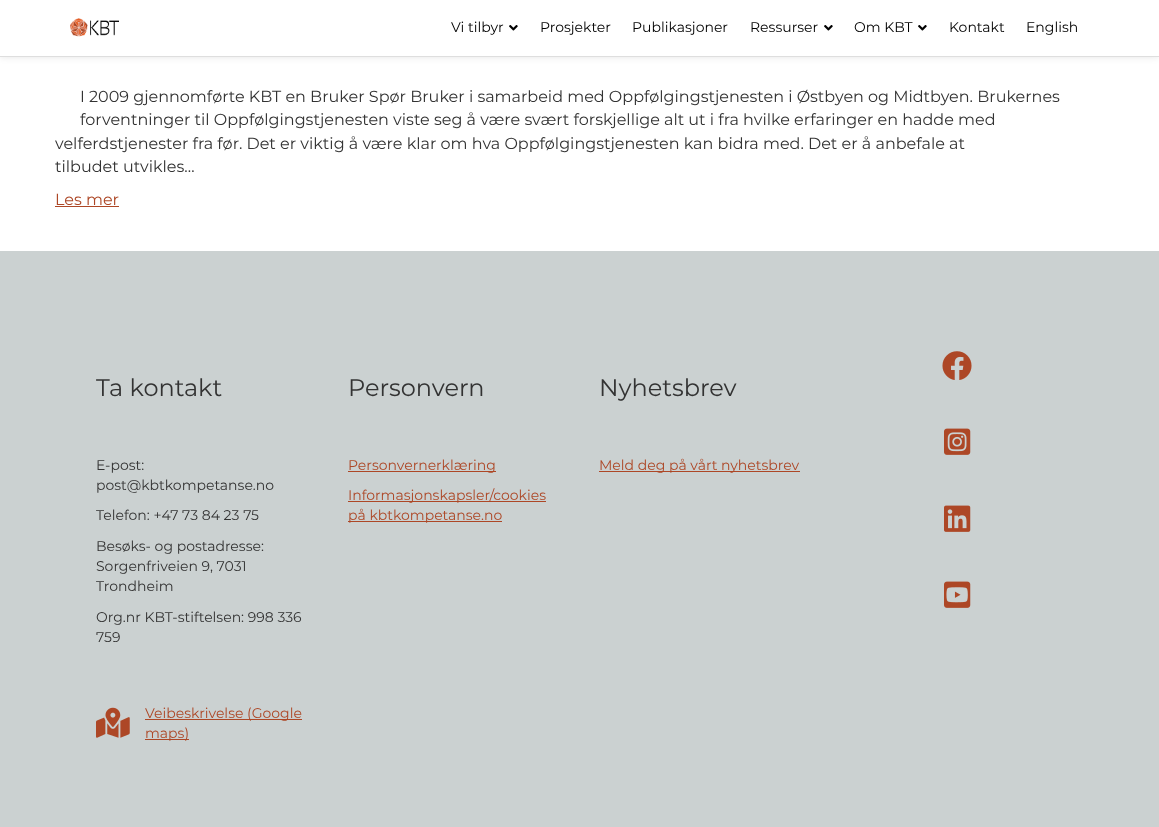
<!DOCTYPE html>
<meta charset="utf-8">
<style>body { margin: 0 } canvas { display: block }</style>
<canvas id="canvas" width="1159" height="827"></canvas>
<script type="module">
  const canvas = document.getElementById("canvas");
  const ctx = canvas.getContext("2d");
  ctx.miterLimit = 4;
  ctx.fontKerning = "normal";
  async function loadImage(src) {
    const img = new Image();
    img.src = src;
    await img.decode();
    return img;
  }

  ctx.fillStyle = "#ffffff";
  ctx.fillRect(0, 0, 1159, 827);
  ctx.fillStyle = "rgba(0, 0, 0, 0.1)";
  ctx.filter = "blur(3.5px)";
  ctx.beginPath();
  ctx.rect(0, 0, 1159, 57);
  ctx.fill();
  ctx.filter = "none";
  ctx.fillStyle = "#ffffff";
  ctx.fillRect(0, 0, 1159, 56);
  ctx.fillStyle = "#dedede";
  ctx.fillRect(0, 56, 1159, 1);
  ctx.drawImage(await loadImage("img1.png"), 70, 18, 49, 19);
  ctx.font = "14px Montserrat";
  ctx.fillStyle = "#000000";
  ctx.fillText("Vi tilbyr", 451, 32);
  ctx.drawImage(await loadImage("img2.png"), 509, 25, 9, 6);
  ctx.fillText("Prosjekter", 540, 32);
  ctx.fillText("Publikasjoner", 632, 32);
  ctx.fillText("Ressurser", 750, 32);
  ctx.drawImage(await loadImage("img2.png"), 824, 25, 9, 6);
  ctx.fillText("Om KBT", 854, 32);
  ctx.drawImage(await loadImage("img2.png"), 918, 25, 9, 6);
  ctx.fillText("Kontakt", 949, 32);
  ctx.fillText("English", 1026, 32);
  ctx.font = "16px Montserrat";
  ctx.fillStyle = "#333333";
  ctx.fillText("I 2009 gjennomførte KBT en Bruker Spør Bruker i samarbeid med Oppfølgingstjenesten i Østbyen og Midtbyen. Brukernes", 80, 102);
  ctx.fillText("forventninger til Oppfølgingstjenesten viste seg å være svært forskjellige alt ut i fra hvilke erfaringer en hadde med", 80, 125);
  ctx.fillText("velferdstjenester fra før. Det er viktig å være klar om hva Oppfølgingstjenesten kan bidra med. Det er å anbefale at", 55, 149);
  ctx.fillText("tilbudet utvikles…", 55, 172);
  ctx.fillStyle = "#ad4726";
  ctx.fillText("Les mer", 55, 205);
  ctx.fillRect(55, 206, 64, 1);
  ctx.fillStyle = "#cbd1d1";
  ctx.fillRect(0, 251, 1159, 576);
  ctx.font = "24px Montserrat";
  ctx.fillStyle = "#333333";
  ctx.fillText("Ta kontakt", 96, 396);
  ctx.font = "14px Montserrat";
  ctx.fillText("E-post:", 96, 470);
  ctx.fillText("post@kbtkompetanse.no", 96, 490);
  ctx.fillText("Telefon: +47 73 84 23 75", 96, 520);
  ctx.fillText("Besøks- og postadresse:", 96, 551);
  ctx.fillText("Sorgenfriveien 9, 7031", 96, 571);
  ctx.fillText("Trondheim", 96, 591);
  ctx.fillText("Org.nr KBT-stiftelsen: 998 336", 96, 622);
  ctx.fillText("759", 96, 642);
  ctx.drawImage(await loadImage("img3.png"), 96, 707, 34, 31);
  ctx.fillStyle = "#ad4726";
  ctx.fillRect(145, 719, 157, 1);
  ctx.fillText("Veibeskrivelse (Google", 145, 718);
  ctx.fillRect(145, 739, 44, 1);
  ctx.fillText("maps)", 145, 738);
  ctx.font = "24px Montserrat";
  ctx.fillStyle = "#333333";
  ctx.fillText("Personvern", 348, 396);
  ctx.fillStyle = "#ad4726";
  ctx.fillRect(348, 471, 148, 1);
  ctx.font = "14px Montserrat";
  ctx.fillText("Personvernerklæring", 348, 470);
  ctx.fillRect(348, 501, 198, 1);
  ctx.fillText("Informasjonskapsler/cookies", 348, 500);
  ctx.fillRect(348, 521, 154, 1);
  ctx.fillText("på kbtkompetanse.no", 348, 520);
  ctx.font = "24px Montserrat";
  ctx.fillStyle = "#333333";
  ctx.fillText("Nyhetsbrev", 599, 396);
  ctx.fillStyle = "#ad4726";
  ctx.fillRect(599, 471, 201, 1);
  ctx.font = "14px Montserrat";
  ctx.fillText("Meld deg på vårt nyhetsbrev", 599, 470);
  ctx.drawImage(await loadImage("img4.png"), 942, 351, 30, 29);
  ctx.drawImage(await loadImage("img5.png"), 944, 428, 27, 27);
  ctx.drawImage(await loadImage("img6.png"), 944, 505, 27, 27);
  ctx.drawImage(await loadImage("img7.png"), 944, 581, 27, 27);
</script>
